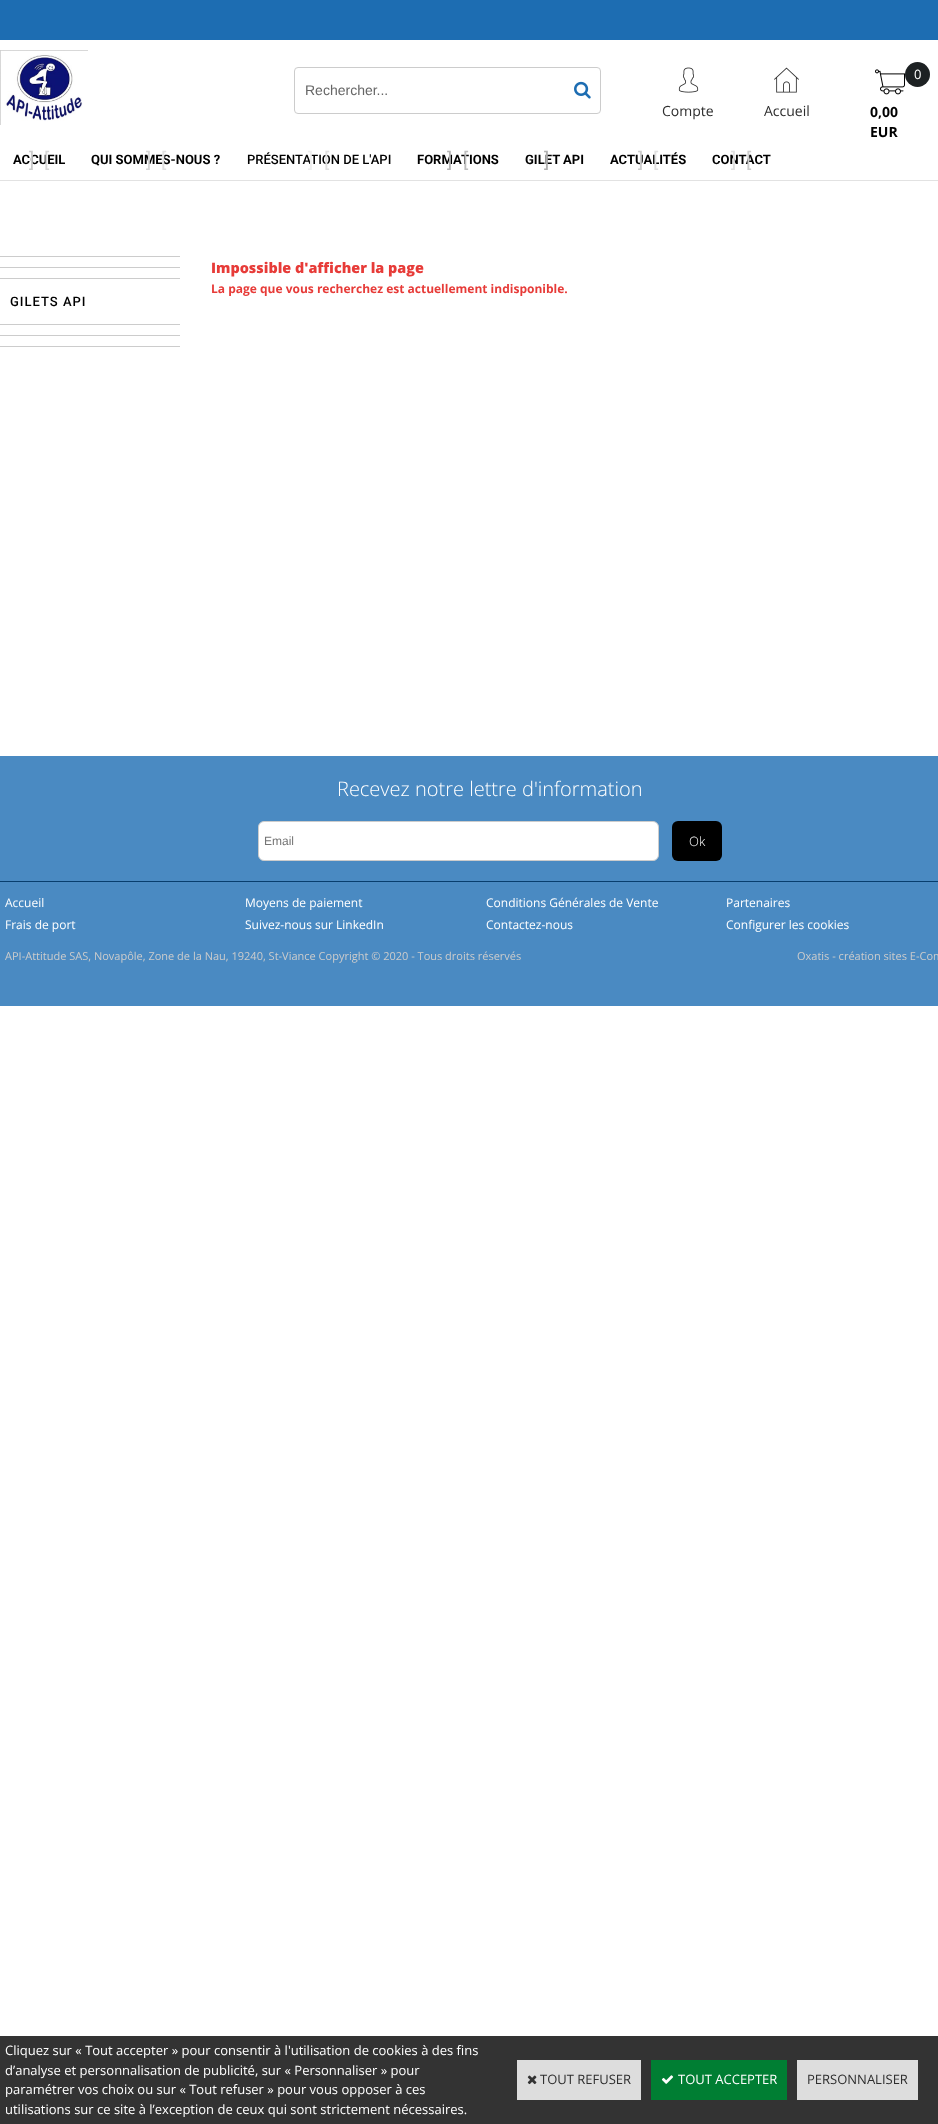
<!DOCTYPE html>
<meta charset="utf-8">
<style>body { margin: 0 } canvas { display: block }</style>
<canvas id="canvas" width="938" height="2124"></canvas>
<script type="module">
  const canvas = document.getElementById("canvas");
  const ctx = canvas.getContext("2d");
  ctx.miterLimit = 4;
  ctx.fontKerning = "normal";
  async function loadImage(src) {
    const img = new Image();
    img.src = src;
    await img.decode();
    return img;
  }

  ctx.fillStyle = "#ffffff";
  ctx.fillRect(0, 0, 938, 2124);
  ctx.fillStyle = "#1d6db2";
  ctx.fillRect(0, 0, 938, 40);
  ctx.fillStyle = "#e2e2e2";
  ctx.fillRect(0, 180, 938, 1);
  ctx.drawImage(await loadImage("img1.png"), 0, 50, 88, 75);
  ctx.beginPath();
  ctx.roundRect(294.5, 67.5, 306, 46, 3.5);
  ctx.strokeStyle = "#cccccc";
  ctx.stroke();
  ctx.font = "14px Liberation Sans";
  ctx.fillStyle = "#666666";
  ctx.fillText("Rechercher...", 305, 95);
  ctx.drawImage(await loadImage("img2.png"), 574, 81, 17, 18);
  ctx.drawImage(await loadImage("img3.png"), 678, 67, 21, 26);
  ctx.font = "14px Open Sans";
  ctx.fillStyle = "#2e2e2e";
  ctx.fillText("Compte", 662, 116);
  ctx.drawImage(await loadImage("img4.png"), 774, 67, 25, 26);
  ctx.fillText("Accueil", 764, 116);
  ctx.drawImage(await loadImage("img5.png"), 875, 69, 30, 26);
  ctx.fillStyle = "#1d2123";
  ctx.beginPath();
  ctx.arc(917.5, 74.5, 12.5, 0, Math.PI * 2);
  ctx.fill();
  ctx.font = "13px Open Sans";
  ctx.fillStyle = "#ffffff";
  ctx.fillText("0", 914, 79);
  ctx.font = "bold 14px Open Sans";
  ctx.fillStyle = "#000000";
  ctx.fillText("0,00", 870, 117);
  ctx.fillText("EUR", 870, 137);
  ctx.font = "bold 13px Roboto";
  ctx.fillText("ACCUEIL", 13, 164);
  ctx.font = "20px Roboto";
  ctx.fillStyle = "#cccccc";
  ctx.fillText("]", 29, 167);
  ctx.fillStyle = "#d6d6d6";
  ctx.fillText("[", 44, 167);
  ctx.font = "bold 13px Roboto";
  ctx.fillStyle = "#000000";
  ctx.fillText("QUI SOMMES-NOUS ?", 91, 164);
  ctx.font = "20px Roboto";
  ctx.fillStyle = "#d6d6d6";
  ctx.fillText("]", 146, 167);
  ctx.fillStyle = "#e0e0e0";
  ctx.fillText("[", 161, 167);
  ctx.font = "500 13px Roboto";
  ctx.fillStyle = "#000000";
  ctx.fillText("PRÉSENTATION DE L'API", 247, 164);
  ctx.font = "20px Roboto";
  ctx.fillStyle = "#eeeeee";
  ctx.fillText("]", 308, 167);
  ctx.fillStyle = "#e0e0e0";
  ctx.fillText("[", 324, 167);
  ctx.font = "bold 13px Roboto";
  ctx.fillStyle = "#000000";
  ctx.fillText("FORMATIONS", 417, 164);
  ctx.font = "20px Roboto";
  ctx.fillStyle = "#b6b6b6";
  ctx.fillText("]", 447, 167);
  ctx.fillStyle = "#bebebe";
  ctx.fillText("[", 463, 167);
  ctx.font = "bold 13px Roboto";
  ctx.fillStyle = "#000000";
  ctx.fillText("GILET API", 525, 164);
  ctx.font = "20px Roboto";
  ctx.fillStyle = "#b0b0b0";
  ctx.fillText("]", 544, 167);
  ctx.font = "bold 13px Roboto";
  ctx.fillStyle = "#000000";
  ctx.fillText("ACTUALITÉS", 610, 164);
  ctx.font = "20px Roboto";
  ctx.fillStyle = "#cccccc";
  ctx.fillText("]", 638, 167);
  ctx.fillStyle = "#e0e0e0";
  ctx.fillText("[", 653, 167);
  ctx.font = "bold 13px Roboto";
  ctx.fillStyle = "#000000";
  ctx.fillText("CONTACT", 712, 164);
  ctx.font = "20px Roboto";
  ctx.fillStyle = "#e0e0e0";
  ctx.fillText("]", 731, 167);
  ctx.fillStyle = "#cccccc";
  ctx.fillText("[", 746, 167);
  ctx.font = "800 14.4px Open Sans";
  ctx.fillStyle = "#e73b38";
  ctx.fillText("Impossible d'afficher la page", 211, 273);
  ctx.font = "bold 12px Open Sans";
  ctx.fillText("La page que vous recherchez est actuellement indisponible.", 211, 293);
  ctx.fillStyle = "#cccccc";
  ctx.fillRect(0, 256, 180, 1);
  ctx.fillRect(0, 267, 180, 1);
  ctx.fillRect(0, 278, 180, 1);
  ctx.letterSpacing = "1px";
  ctx.font = "500 13px Roboto";
  ctx.fillStyle = "#000000";
  ctx.fillText("GILETS API", 10, 306);
  ctx.fillStyle = "#cccccc";
  ctx.fillRect(0, 324, 180, 1);
  ctx.fillRect(0, 335, 180, 1);
  ctx.fillRect(0, 346, 180, 1);
  ctx.fillStyle = "#4a8ac2";
  ctx.fillRect(0, 756, 938, 250);
  ctx.fillStyle = "#083e6d";
  ctx.fillRect(0, 881, 938, 1);
  ctx.letterSpacing = "0px";
  ctx.font = "300 20px Open Sans";
  ctx.fillStyle = "#ffffff";
  ctx.fillText("Recevez notre lettre d'information", 337, 796);
  ctx.beginPath();
  ctx.roundRect(258.5, 821.5, 400, 39, 5.5);
  ctx.fill();
  ctx.stroke();
  ctx.font = "12px Liberation Sans";
  ctx.fillStyle = "#757575";
  ctx.fillText("Email", 264, 845);
  ctx.fillStyle = "#000000";
  ctx.beginPath();
  ctx.roundRect(672, 821, 50, 40, 6);
  ctx.fill();
  ctx.font = "300 13px Open Sans";
  ctx.fillStyle = "#ffffff";
  ctx.fillText("Ok", 689, 846);
  ctx.font = "12px Open Sans";
  ctx.fillText("Accueil", 5, 907);
  ctx.fillText("Moyens de paiement", 245, 907);
  ctx.fillText("Conditions Générales de Vente", 486, 907);
  ctx.fillText("Partenaires", 726, 907);
  ctx.fillText("Frais de port", 5, 929);
  ctx.fillText("Suivez-nous sur LinkedIn", 245, 929);
  ctx.fillText("Contactez-nous", 486, 929);
  ctx.fillText("Configurer les cookies", 726, 929);
  ctx.font = "11px Open Sans";
  ctx.fillStyle = "#cccccc";
  ctx.fillText("API-Attitude SAS, Novapôle, Zone de la Nau, 19240, St-Viance Copyright © 2020 - Tous droits réservés", 5, 960);
  ctx.fillText("Oxatis - création sites E-Com", 797, 960);
  ctx.fillStyle = "#333333";
  ctx.fillRect(0, 2036, 938, 88);
  ctx.font = "13px Open Sans";
  ctx.fillStyle = "#ffffff";
  ctx.fillText("Cliquez sur « Tout accepter » pour consentir à l'utilisation de cookies à des fins", 5, 2055);
  ctx.fillText("d’analyse et personnalisation de publicité, sur « Personnaliser » pour", 5, 2075);
  ctx.fillText("paramétrer vos choix ou sur « Tout refuser » pour vous opposer à ces", 5, 2094);
  ctx.fillText("utilisations sur ce site à l’exception de ceux qui sont strictement nécessaires.", 5, 2114);
  ctx.fillStyle = "#dddddd";
  ctx.fillRect(517, 2060, 124, 40);
  ctx.drawImage(await loadImage("img6.png"), 527, 2075, 10, 10);
  ctx.fillStyle = "#2e2e2e";
  ctx.fillText("TOUT REFUSER", 540, 2084);
  ctx.fillStyle = "#007e33";
  ctx.fillRect(651, 2060, 136, 40);
  ctx.drawImage(await loadImage("img7.png"), 661, 2075, 13, 9);
  ctx.fillStyle = "#ffffff";
  ctx.fillText("TOUT ACCEPTER", 678, 2084);
  ctx.fillStyle = "#dddddd";
  ctx.fillRect(797, 2060, 121, 40);
  ctx.fillStyle = "#2e2e2e";
  ctx.fillText("PERSONNALISER", 807, 2084);
</script>
